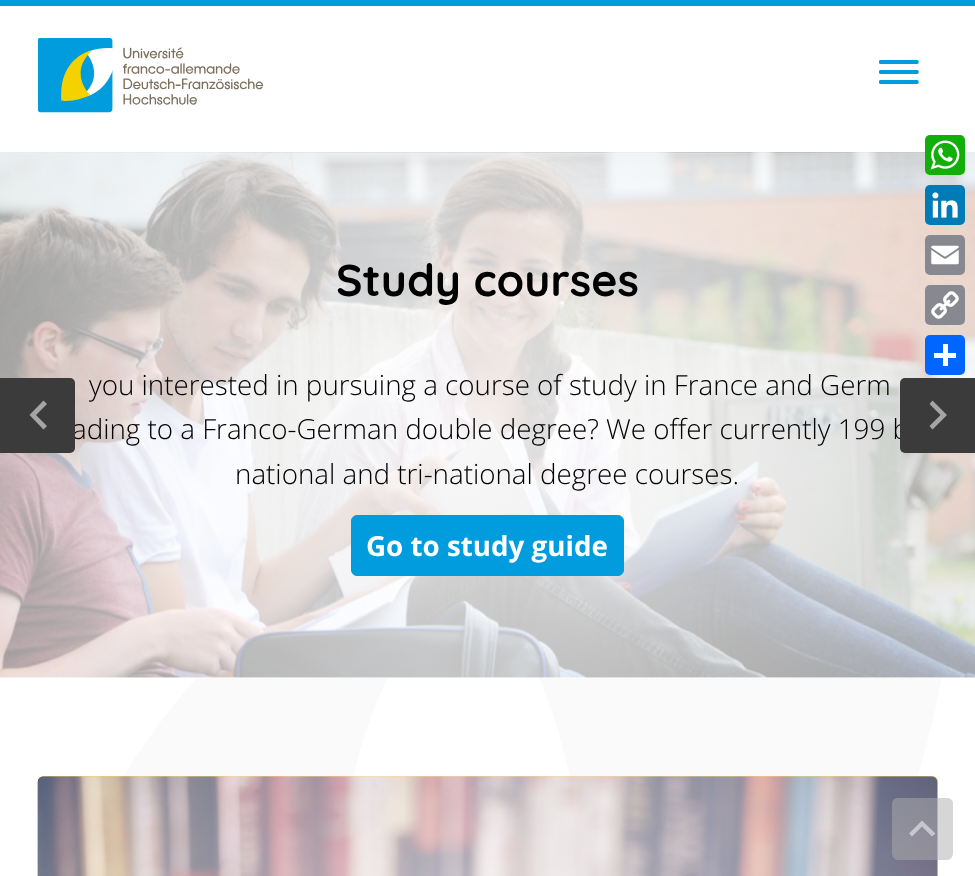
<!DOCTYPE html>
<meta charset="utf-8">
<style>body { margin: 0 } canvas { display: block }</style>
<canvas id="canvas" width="975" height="876"></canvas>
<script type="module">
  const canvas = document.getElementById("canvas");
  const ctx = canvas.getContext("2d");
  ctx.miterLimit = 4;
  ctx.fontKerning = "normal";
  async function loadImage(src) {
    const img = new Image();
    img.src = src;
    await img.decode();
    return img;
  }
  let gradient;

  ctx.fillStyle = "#ffffff";
  ctx.fillRect(0, 0, 975, 876);
  ctx.fillStyle = "#009cdd";
  ctx.fillRect(0, 0, 975, 6);
  ctx.drawImage(await loadImage("img1.png"), 38, 38, 226, 75);
  ctx.drawImage(await loadImage("img2.png"), 879, 60, 40, 24);
  ctx.drawImage(await loadImage("img3.png"), 0, 152, 975, 526);
  gradient = ctx.createRadialGradient(488, 415, 0, 488, 415, 664);
  gradient.addColorStop(0, "rgba(255, 255, 255, 0.8)");
  gradient.addColorStop(1, "rgba(255, 255, 255, 0.2)");
  ctx.fillStyle = gradient;
  ctx.fillRect(0, 153, 975, 525);
  ctx.font = "bold 44.5px Quicksand";
  ctx.fillStyle = "#000000";
  ctx.fillText("Study courses", 336, 296);
  ctx.font = "300 27.75px Open Sans";
  ctx.fillText("you interested in pursuing a course of study in France and Germ", 89, 395);
  ctx.fillText("ading to a Franco-German double degree? We offer currently 199 b", 72, 439);
  ctx.fillText("national and tri-national degree courses.", 235, 484);
  ctx.fillStyle = "#009cdd";
  ctx.beginPath();
  ctx.roundRect(351.5, 515.5, 272, 60, 5.5);
  ctx.fill();
  ctx.strokeStyle = "#009cdd";
  ctx.stroke();
  ctx.font = "bold 27.75px Open Sans";
  ctx.fillStyle = "#ffffff";
  ctx.fillText("Go to study guide", 366, 556);
  ctx.fillStyle = "#3b3b3b";
  ctx.beginPath();
  ctx.roundRect(0, 378, 75, 75, [0, 5, 5, 0]);
  ctx.fill();
  ctx.fillStyle = "#a5a5a5";
  ctx.beginPath();
  ctx.moveTo(47, 404);
  ctx.lineTo(43.5, 400.5);
  ctx.lineTo(29.5, 415);
  ctx.lineTo(43.5, 429.5);
  ctx.lineTo(47, 426);
  ctx.lineTo(36, 415);
  ctx.closePath();
  ctx.fill();
  ctx.fillStyle = "#3b3b3b";
  ctx.beginPath();
  ctx.roundRect(900, 378, 75, 75, [5, 0, 0, 5]);
  ctx.fill();
  ctx.fillStyle = "#a5a5a5";
  ctx.beginPath();
  ctx.moveTo(929.5, 404);
  ctx.lineTo(932.5, 400.5);
  ctx.lineTo(947, 415);
  ctx.lineTo(932.5, 429.5);
  ctx.lineTo(929.5, 426);
  ctx.lineTo(940.5, 415);
  ctx.closePath();
  ctx.fill();
  ctx.drawImage(await loadImage("img4.png"), 123, 678, 818, 98);
  ctx.fillStyle = "#ffae00";
  ctx.beginPath();
  ctx.roundRect(38, 776, 900, 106, 6);
  ctx.fill();
  ctx.drawImage(await loadImage("img5.png"), 37, 776, 901, 100);
  gradient = ctx.createRadialGradient(488, 1084, 0, 488, 1084, 654);
  gradient.addColorStop(0, "rgba(255, 255, 255, 0.8)");
  gradient.addColorStop(1, "rgba(255, 255, 255, 0.2)");
  ctx.fillStyle = gradient;
  ctx.beginPath();
  ctx.roundRect(38, 776, 900, 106, 6);
  ctx.fill();
  ctx.fillStyle = "#12af0a";
  ctx.beginPath();
  ctx.roundRect(925, 135, 40, 40, 5);
  ctx.fill();
  ctx.drawImage(await loadImage("img6.png"), 930, 140, 30, 30);
  ctx.fillStyle = "#007bb5";
  ctx.beginPath();
  ctx.roundRect(925, 185, 40, 40, 5);
  ctx.fill();
  ctx.drawImage(await loadImage("img7.png"), 932, 192, 26, 26);
  ctx.fillStyle = "#888990";
  ctx.beginPath();
  ctx.roundRect(925, 235, 40, 40, 5);
  ctx.fill();
  ctx.drawImage(await loadImage("img8.png"), 931, 245, 28, 20);
  ctx.beginPath();
  ctx.roundRect(925, 285, 40, 40, 5);
  ctx.fill();
  ctx.drawImage(await loadImage("img9.png"), 931, 291, 28, 28);
  ctx.fillStyle = "#0166ff";
  ctx.beginPath();
  ctx.roundRect(925, 335, 40, 40, 5);
  ctx.fill();
  ctx.fillStyle = "#ffffff";
  ctx.fillRect(943, 344, 5, 22);
  ctx.fillRect(934, 353, 22, 5);
  ctx.fillStyle = "rgba(174, 174, 174, 0.5)";
  ctx.beginPath();
  ctx.moveTo(947, 860);
  ctx.lineTo(898, 860);
  ctx.bezierCurveTo(895, 860, 892, 857, 892, 853);
  ctx.lineTo(892, 804);
  ctx.bezierCurveTo(892, 800, 895, 798, 898, 798);
  ctx.lineTo(947, 798);
  ctx.bezierCurveTo(950, 798, 953, 800, 953, 804);
  ctx.lineTo(953, 853);
  ctx.bezierCurveTo(953, 857, 950, 860, 947, 860);
  ctx.closePath();
  ctx.fill();
  ctx.fillStyle = "rgba(255, 255, 255, 0.5)";
  ctx.beginPath();
  ctx.moveTo(912, 836.5);
  ctx.lineTo(922, 826.5);
  ctx.lineTo(932, 836.5);
  ctx.lineTo(935.5, 833.5);
  ctx.lineTo(922, 820.5);
  ctx.lineTo(909, 833.5);
  ctx.closePath();
  ctx.fill();
</script>
